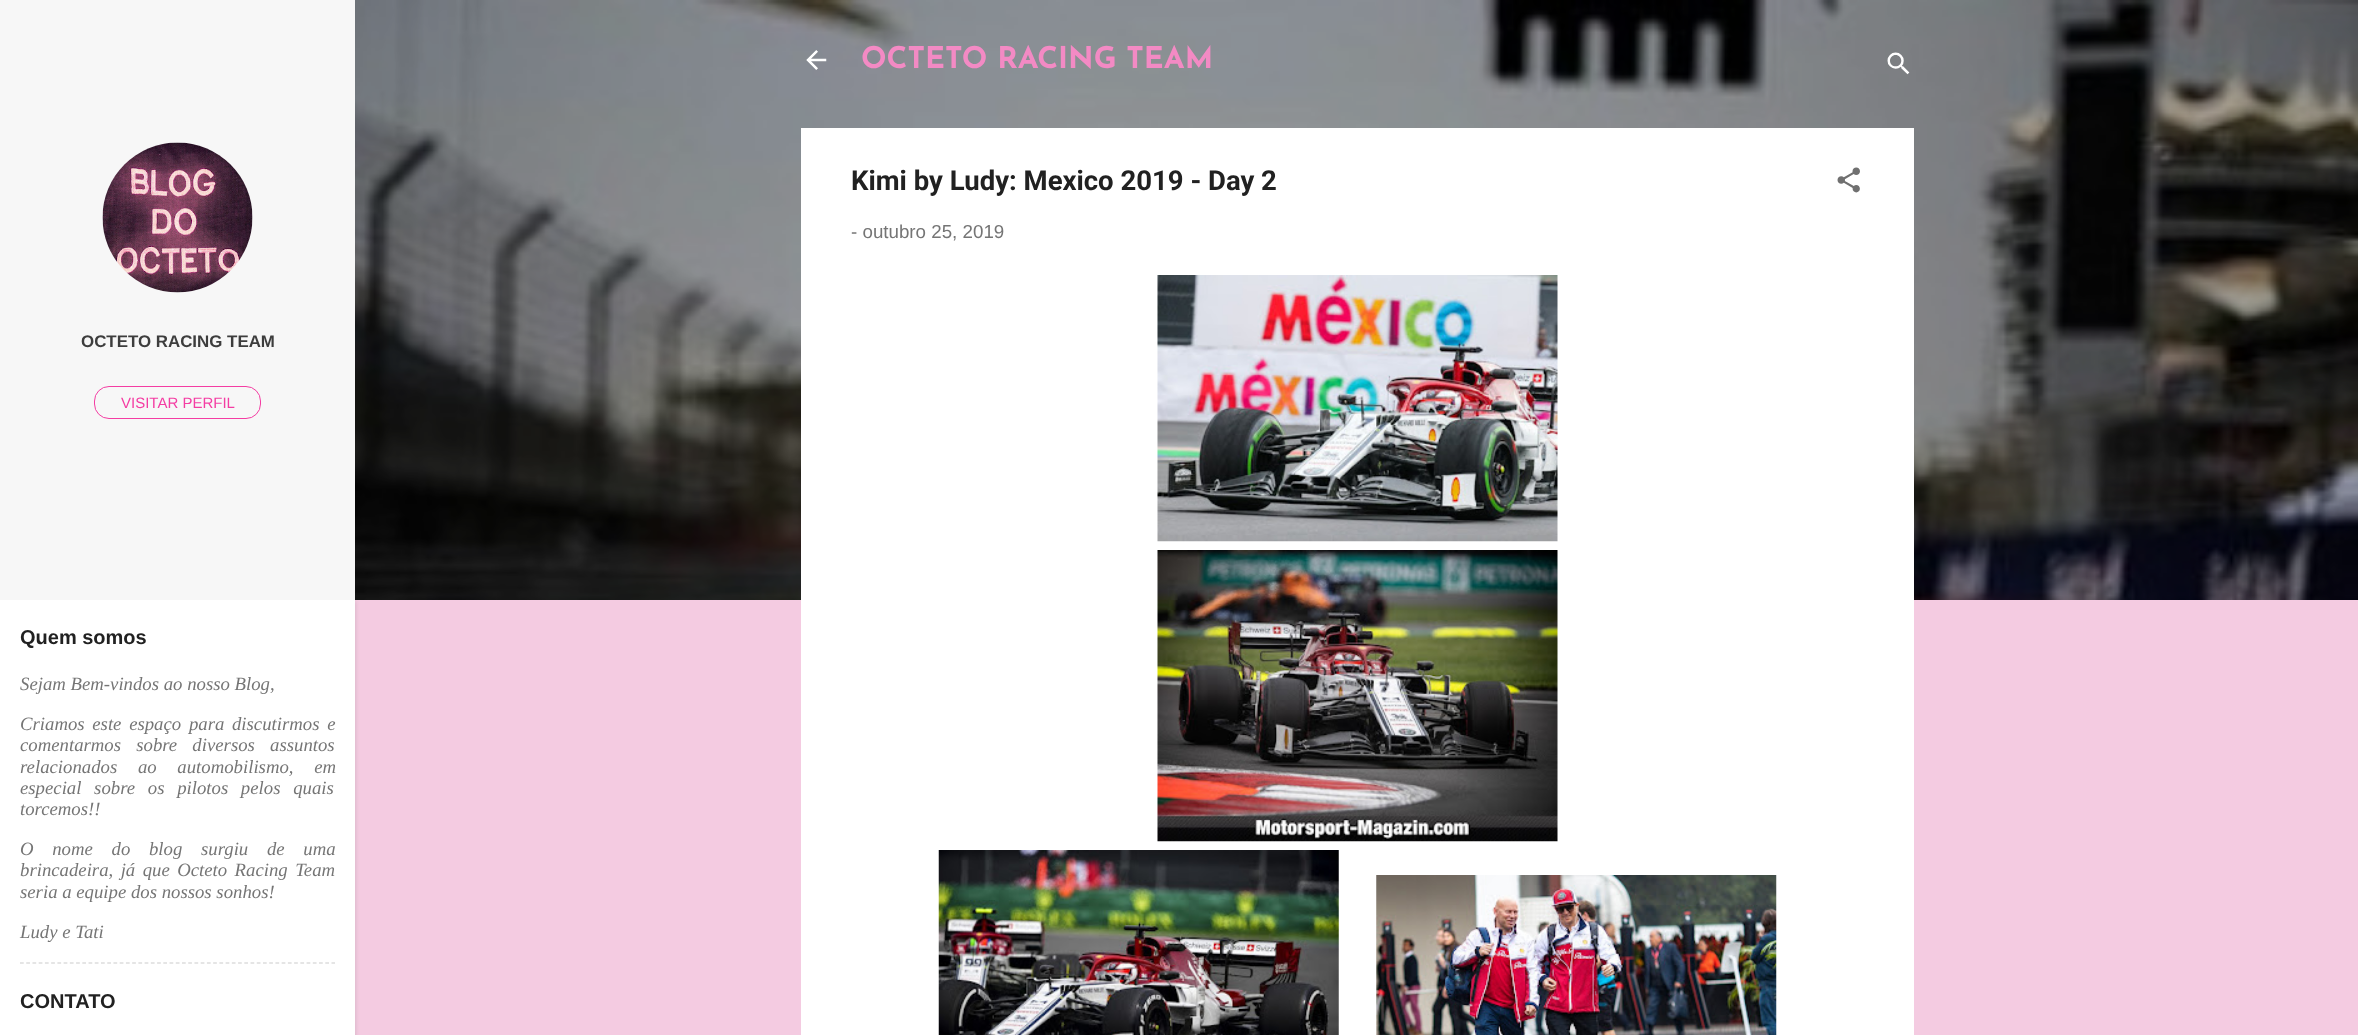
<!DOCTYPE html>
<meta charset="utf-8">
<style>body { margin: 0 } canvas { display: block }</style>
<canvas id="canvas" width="2358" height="1035"></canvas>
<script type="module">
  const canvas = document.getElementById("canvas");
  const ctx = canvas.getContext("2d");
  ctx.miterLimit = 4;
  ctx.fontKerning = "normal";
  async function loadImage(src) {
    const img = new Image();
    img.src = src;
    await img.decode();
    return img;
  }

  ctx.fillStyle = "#f4cbe1";
  ctx.fillRect(0, 0, 2358, 1035);
  ctx.drawImage(await loadImage("img1.png"), 355, 0, 2003, 600);
  ctx.drawImage(await loadImage("img2.png"), 806, 50, 21, 20);
  ctx.font = "100 30px Josefin Sans";
  ctx.fillStyle = "#f38ac4";
  ctx.fillText("OCTETO RACING TEAM", 861, 68);
  ctx.drawImage(await loadImage("img3.png"), 1887, 52, 23, 23);
  ctx.fillStyle = "#ffffff";
  ctx.fillRect(801, 128, 1113, 907);
  ctx.font = "bold 27.5px Roboto";
  ctx.fillStyle = "#212121";
  ctx.fillText("Kimi by Ludy: Mexico 2019 - Day 2", 851, 190);
  ctx.drawImage(await loadImage("img4.png"), 1837, 167, 23, 26);
  ctx.font = "18.75px Liberation Sans";
  ctx.fillStyle = "#757575";
  ctx.fillText("- outubro 25, 2019", 851, 238);
  ctx.drawImage(await loadImage("img5.png"), 1157, 275, 401, 267);
  ctx.drawImage(await loadImage("img6.png"), 1157, 550, 401, 292);
  ctx.drawImage(await loadImage("img7.png"), 938, 850, 401, 185);
  ctx.drawImage(await loadImage("img8.png"), 1376, 875, 401, 160);
  ctx.fillStyle = "rgba(0, 0, 0, 0.1)";
  ctx.filter = "blur(2px)";
  ctx.beginPath();
  ctx.rect(1, 601, 355, 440);
  ctx.fill();
  ctx.filter = "none";
  ctx.fillStyle = "#ffffff";
  ctx.fillRect(0, 600, 355, 435);
  ctx.fillStyle = "#f7f7f7";
  ctx.fillRect(0, 0, 355, 600);
  ctx.drawImage(await loadImage("img9.png"), 102, 142, 151, 151);
  ctx.font = "bold 16.9px Liberation Sans";
  ctx.fillStyle = "#3d3d3d";
  ctx.fillText("OCTETO RACING TEAM", 81, 347);
  ctx.beginPath();
  ctx.roundRect(94.5, 386.5, 166, 32, 14.5);
  ctx.strokeStyle = "#f43da3";
  ctx.stroke();
  ctx.font = "15px Liberation Sans";
  ctx.fillStyle = "#f43da3";
  ctx.fillText("VISITAR PERFIL", 121, 408);
  ctx.font = "bold 20px Liberation Sans";
  ctx.fillStyle = "#212121";
  ctx.fillText("Quem somos", 20, 644);
  ctx.font = "italic 18.75px Liberation Serif";
  ctx.fillStyle = "#757575";
  ctx.fillText("Sejam Bem-vindos ao nosso Blog,", 20, 690);
  ctx.wordSpacing = "3px";
  ctx.fillText("Criamos este espaço para discutirmos e", 20, 730);
  ctx.wordSpacing = "10.5px";
  ctx.fillText("comentarmos sobre diversos assuntos", 20, 751);
  ctx.wordSpacing = "16px";
  ctx.fillText("relacionados ao automobilismo, em", 20, 773);
  ctx.wordSpacing = "8px";
  ctx.fillText("especial sobre os pilotos pelos quais", 20, 794);
  ctx.wordSpacing = "0px";
  ctx.fillText("torcemos!!", 20, 815);
  ctx.wordSpacing = "14px";
  ctx.fillText("O nome do blog surgiu de uma", 20, 855);
  ctx.wordSpacing = "2.75px";
  ctx.fillText("brincadeira, já que Octeto Racing Team", 20, 876);
  ctx.wordSpacing = "0px";
  ctx.fillText("seria a equipe dos nossos sonhos!", 20, 898);
  ctx.fillText("Ludy e Tati", 20, 938);
  ctx.beginPath();
  ctx.moveTo(20, 963);
  ctx.lineTo(335, 963);
  ctx.strokeStyle = "#cccccc";
  ctx.lineWidth = 1.2;
  ctx.setLineDash([3.75, 2.48]);
  ctx.stroke();
  ctx.font = "bold 20px Liberation Sans";
  ctx.fillStyle = "#212121";
  ctx.fillText("CONTATO", 20, 1008);
</script>
